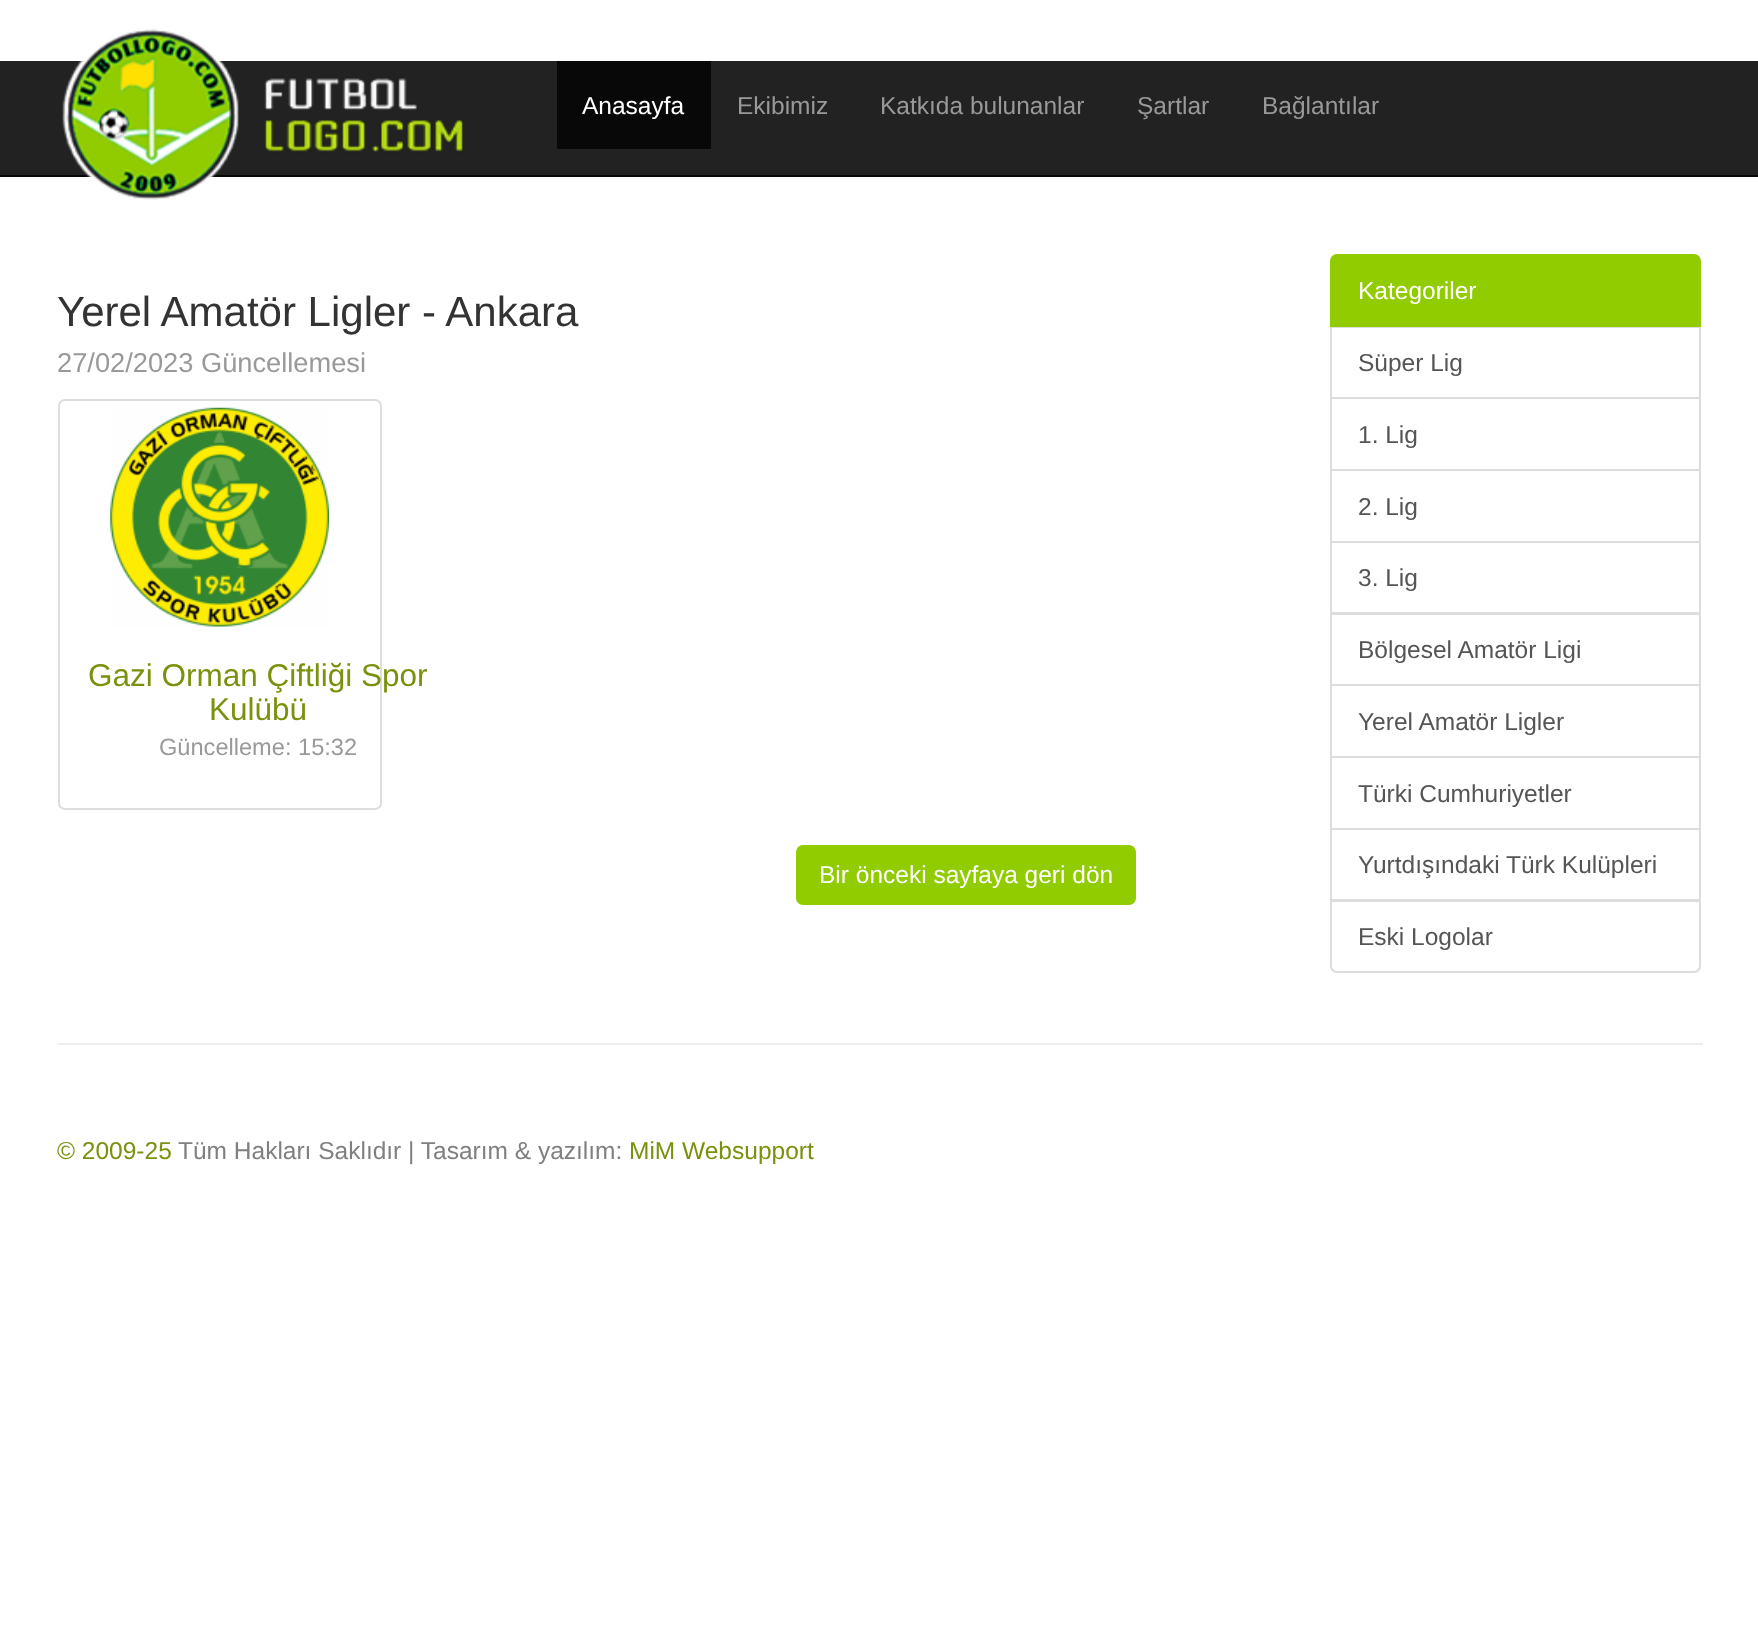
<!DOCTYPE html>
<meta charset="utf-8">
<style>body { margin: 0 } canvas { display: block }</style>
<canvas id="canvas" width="1758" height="1627"></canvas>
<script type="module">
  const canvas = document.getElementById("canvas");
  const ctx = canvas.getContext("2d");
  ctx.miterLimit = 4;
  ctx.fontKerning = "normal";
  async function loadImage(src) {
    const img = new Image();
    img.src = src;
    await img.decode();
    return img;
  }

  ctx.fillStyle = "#ffffff";
  ctx.fillRect(0, 0, 1758, 1627);
  ctx.fillStyle = "#222222";
  ctx.fillRect(0, 61, 1758, 114);
  ctx.fillStyle = "#080808";
  ctx.fillRect(0, 175, 1758, 2);
  ctx.drawImage(await loadImage("img1.png"), 62, 29, 402, 171);
  ctx.fillRect(557, 61, 154, 88);
  ctx.font = "24.5px Liberation Sans";
  ctx.fillStyle = "#ffffff";
  ctx.fillText("Anasayfa", 582, 114);
  ctx.fillStyle = "#999999";
  ctx.fillText("Ekibimiz", 737, 114);
  ctx.fillText("Katkıda bulunanlar", 880, 114);
  ctx.fillText("Şartlar", 1137, 114);
  ctx.fillText("Bağlantılar", 1262, 114);
  ctx.font = "42px Liberation Sans";
  ctx.fillStyle = "#333333";
  ctx.fillText("Yerel Amatör Ligler - Ankara", 57, 326);
  ctx.font = "27.25px Liberation Sans";
  ctx.fillStyle = "#999999";
  ctx.fillText("27/02/2023 Güncellemesi", 57, 372);
  ctx.beginPath();
  ctx.roundRect(59, 400, 322, 409, 6);
  ctx.strokeStyle = "#dddddd";
  ctx.lineWidth = 2;
  ctx.stroke();
  ctx.drawImage(await loadImage("img2.png"), 110, 407, 219, 220);
  ctx.font = "31.5px Liberation Sans";
  ctx.fillStyle = "#79920e";
  ctx.fillText("Gazi Orman Çiftliği Spor", 88, 686);
  ctx.fillText("Kulübü", 209, 720);
  ctx.font = "23.6px Liberation Sans";
  ctx.fillStyle = "#999999";
  ctx.fillText("Güncelleme: 15:32", 159, 755);
  ctx.fillStyle = "#91cc00";
  ctx.beginPath();
  ctx.roundRect(797, 846, 338, 58, 6);
  ctx.fill();
  ctx.strokeStyle = "#91cc00";
  ctx.stroke();
  ctx.font = "24.5px Liberation Sans";
  ctx.fillStyle = "#ffffff";
  ctx.fillText("Bir önceki sayfaya geri dön", 819, 883);
  ctx.strokeStyle = "#dddddd";
  ctx.strokeRect(1331, 327, 369, 71);
  ctx.fillStyle = "#91cc00";
  ctx.beginPath();
  ctx.roundRect(1331, 255, 369, 71, [6, 6, 0, 0]);
  ctx.fill();
  ctx.strokeStyle = "#91cc00";
  ctx.stroke();
  ctx.fillStyle = "#ffffff";
  ctx.fillText("Kategoriler", 1358, 299);
  ctx.fillStyle = "#555555";
  ctx.fillText("Süper Lig", 1358, 371);
  ctx.strokeStyle = "#dddddd";
  ctx.strokeRect(1331, 398, 369, 72);
  ctx.fillText("1. Lig", 1358, 443);
  ctx.strokeRect(1331, 470, 369, 72);
  ctx.fillText("2. Lig", 1358, 515);
  ctx.strokeRect(1331, 542, 369, 71);
  ctx.fillText("3. Lig", 1358, 586);
  ctx.strokeRect(1331, 614, 369, 71);
  ctx.fillText("Bölgesel Amatör Ligi", 1358, 658);
  ctx.strokeRect(1331, 685, 369, 72);
  ctx.fillText("Yerel Amatör Ligler", 1358, 730);
  ctx.strokeRect(1331, 757, 369, 72);
  ctx.fillText("Türki Cumhuriyetler", 1358, 802);
  ctx.strokeRect(1331, 829, 369, 71);
  ctx.fillText("Yurtdışındaki Türk Kulüpleri", 1358, 873);
  ctx.fillStyle = "#ffffff";
  ctx.beginPath();
  ctx.roundRect(1331, 901, 369, 71, [0, 0, 6, 6]);
  ctx.fill();
  ctx.stroke();
  ctx.fillStyle = "#555555";
  ctx.fillText("Eski Logolar", 1358, 945);
  ctx.fillStyle = "#eeeeee";
  ctx.fillRect(58, 1043, 1645, 2);
  ctx.fillStyle = "#79920e";
  ctx.fillText("© 2009-25", 57, 1159);
  ctx.fillStyle = "#808080";
  ctx.fillText("Tüm Hakları Saklıdır | Tasarım & yazılım:", 178, 1159);
  ctx.fillStyle = "#79920e";
  ctx.fillText("MiM Websupport", 629, 1159);
</script>
